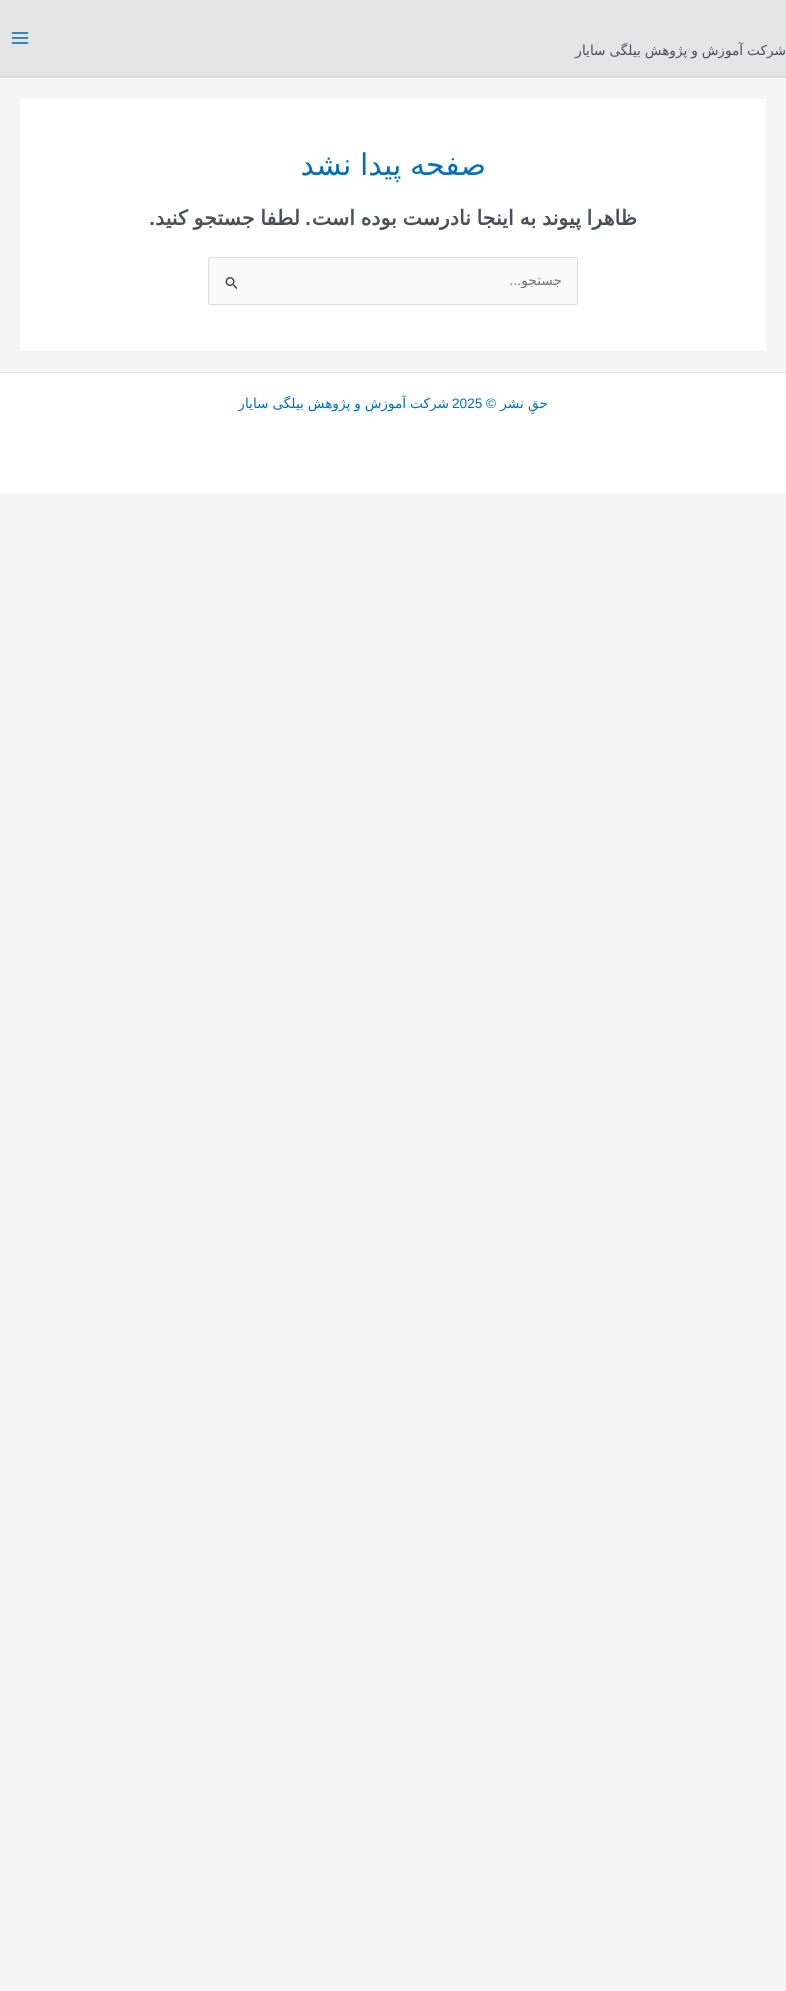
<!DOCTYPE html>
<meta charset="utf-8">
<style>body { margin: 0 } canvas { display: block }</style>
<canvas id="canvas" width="786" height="1991"></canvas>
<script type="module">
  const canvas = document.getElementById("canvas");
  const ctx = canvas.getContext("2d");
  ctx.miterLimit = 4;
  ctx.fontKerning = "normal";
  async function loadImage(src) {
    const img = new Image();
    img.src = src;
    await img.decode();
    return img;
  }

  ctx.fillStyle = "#f5f5f5";
  ctx.fillRect(0, 0, 786, 1991);
  ctx.fillStyle = "#e5e5e5";
  ctx.fillRect(0, 0, 786, 75);
  ctx.fillStyle = "#dddddd";
  ctx.fillRect(0, 75, 786, 3);
  ctx.drawImage(await loadImage("img1.png"), 11, 32, 18, 12);
  ctx.wordSpacing = "-0.5px";
  ctx.direction = "rtl";
  ctx.font = "13.7px DejaVu Sans";
  ctx.fillStyle = "#4b4f58";
  ctx.fillText("شرکت آموزش و پژوهش بیلگی سایار", 786, 55);
  ctx.fillStyle = "#ffffff";
  ctx.fillRect(20, 99, 746, 252);
  ctx.wordSpacing = "-1px";
  ctx.font = "30px DejaVu Sans";
  ctx.fillStyle = "#0170b9";
  ctx.fillText("صفحه پیدا نشد", 486, 175);
  ctx.wordSpacing = "-0.75px";
  ctx.font = "bold 20.5px DejaVu Sans";
  ctx.fillStyle = "#4b4f58";
  ctx.fillText("ظاهرا پیوند به اینجا نادرست بوده است", 637, 225);
  ctx.wordSpacing = "0px";
  ctx.font = "bold 20.5px Liberation Sans";
  ctx.fillText(".", 311, 225);
  ctx.wordSpacing = "-0.75px";
  ctx.font = "bold 20.5px DejaVu Sans";
  ctx.fillText("لطفا جستجو کنید", 300, 225);
  ctx.wordSpacing = "0px";
  ctx.font = "bold 20.5px Liberation Sans";
  ctx.fillText(".", 155, 225);
  ctx.fillStyle = "#fafafa";
  ctx.beginPath();
  ctx.roundRect(208.5, 257.5, 369, 47, 1.5);
  ctx.fill();
  ctx.strokeStyle = "#dddddd";
  ctx.stroke();
  ctx.font = "13.7px Liberation Sans";
  ctx.fillStyle = "#757575";
  ctx.fillText("...", 521, 285);
  ctx.save();
  ctx.beginPath();
  ctx.rect(258, 272, 304, 16);
  ctx.clip();
  ctx.font = "13.7px DejaVu Sans";
  ctx.fillText("جستجو", 562, 285);
  ctx.restore();
  ctx.drawImage(await loadImage("img2.png"), 225, 277, 12, 12);
  ctx.fillStyle = "#ffffff";
  ctx.fillRect(0, 373, 786, 120);
  ctx.fillStyle = "#e5e5e5";
  ctx.fillRect(0, 372, 786, 1);
  ctx.font = "13.7px DejaVu Sans";
  ctx.fillStyle = "#0170b9";
  ctx.fillText("حقِ نشر", 548, 408);
  ctx.font = "13.7px Liberation Sans";
  ctx.fillText("©", 496, 408);
  ctx.direction = "ltr";
  ctx.fillText("2025", 452, 408);
  ctx.wordSpacing = "-0.5px";
  ctx.direction = "rtl";
  ctx.font = "13.7px DejaVu Sans";
  ctx.fillText("شرکت آموزش و پژوهش بیلگی سایار", 449, 408);
</script>
